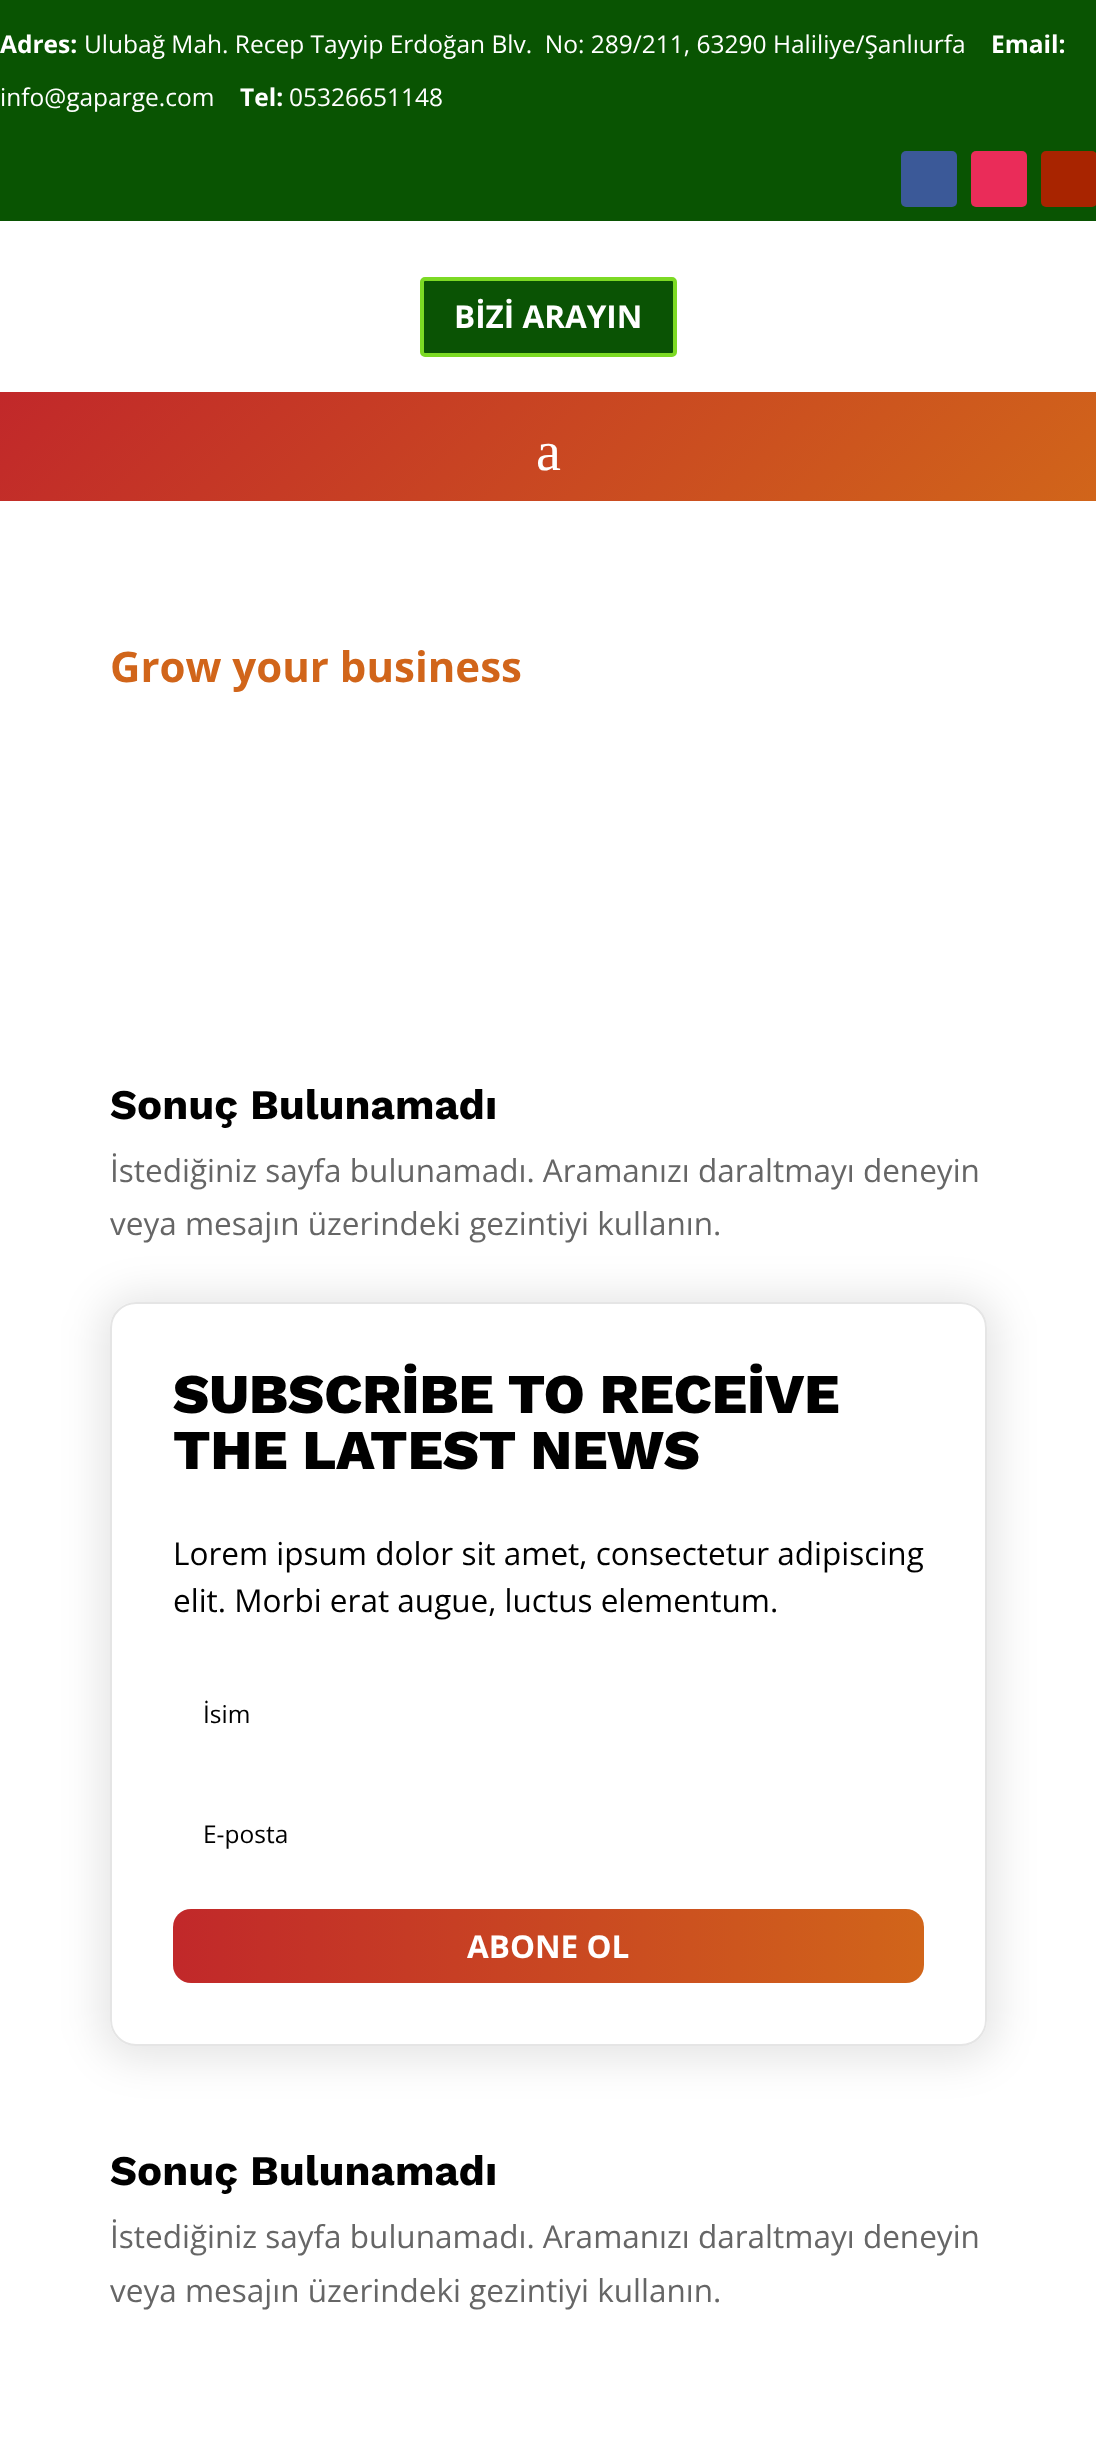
<!DOCTYPE html>
<meta charset="utf-8">
<style>body { margin: 0 } canvas { display: block }</style>
<canvas id="canvas" width="1096" height="2448"></canvas>
<script type="module">
  const canvas = document.getElementById("canvas");
  const ctx = canvas.getContext("2d");
  ctx.miterLimit = 4;
  ctx.fontKerning = "normal";
  let gradient;

  ctx.fillStyle = "#ffffff";
  ctx.fillRect(0, 0, 1096, 2448);
  ctx.fillStyle = "#095402";
  ctx.fillRect(0, 0, 1096, 221);
  ctx.font = "bold 24.5px Open Sans";
  ctx.fillStyle = "#ffffff";
  ctx.fillText("Adres:", 0, 53);
  ctx.font = "24.5px Open Sans";
  ctx.fillText("Ulubağ Mah. Recep Tayyip Erdoğan Blv.  No: 289/211, 63290 Haliliye/Şanlıurfa", 84, 53);
  ctx.font = "bold 24.5px Open Sans";
  ctx.fillText("Email:", 991, 53);
  ctx.font = "24.5px Open Sans";
  ctx.fillText("info@gaparge.com", 0, 106);
  ctx.font = "bold 24.5px Open Sans";
  ctx.fillText("Tel:", 240, 106);
  ctx.font = "24.5px Open Sans";
  ctx.fillText("05326651148", 289, 106);
  ctx.fillStyle = "#3b5998";
  ctx.beginPath();
  ctx.roundRect(901, 151, 56, 56, 5);
  ctx.fill();
  ctx.fillStyle = "#ea2c59";
  ctx.beginPath();
  ctx.roundRect(971, 151, 56, 56, 5);
  ctx.fill();
  ctx.fillStyle = "#a82400";
  ctx.beginPath();
  ctx.roundRect(1041, 151, 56, 56, 5);
  ctx.fill();
  ctx.fillStyle = "#0a5304";
  ctx.beginPath();
  ctx.roundRect(422, 279, 253, 76, 3);
  ctx.fill();
  ctx.strokeStyle = "#7cda24";
  ctx.lineWidth = 4;
  ctx.stroke();
  ctx.font = "bold 31.5px Open Sans";
  ctx.fillStyle = "#ffffff";
  ctx.fillText("BİZİ ARAYIN", 454, 328);
  gradient = ctx.createLinearGradient(247, 145, 850, 748);
  gradient.addColorStop(0, "#c1282a");
  gradient.addColorStop(1, "#d1651a");
  ctx.fillStyle = gradient;
  ctx.fillRect(0, 392, 1096, 109);
  ctx.font = "56px Liberation Serif";
  ctx.fillStyle = "#ffffff";
  ctx.fillText("a", 536, 470);
  ctx.font = "bold 42px Open Sans";
  ctx.fillStyle = "#d1651a";
  ctx.fillText("Grow your business", 110, 682);
  ctx.font = "bold 42px Work Sans";
  ctx.fillStyle = "#000000";
  ctx.fillText("Sonuç Bulunamadı", 110, 1119);
  ctx.font = "31.5px Open Sans";
  ctx.fillStyle = "#666666";
  ctx.fillText("İstediğiniz sayfa bulunamadı. Aramanızı daraltmayı deneyin", 110, 1182);
  ctx.save();
  ctx.beginPath();
  ctx.moveTo(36, 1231);
  ctx.lineTo(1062, 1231);
  ctx.lineTo(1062, 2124);
  ctx.lineTo(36, 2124);
  ctx.closePath();
  ctx.moveTo(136, 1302);
  ctx.lineTo(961, 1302);
  ctx.bezierCurveTo(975.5, 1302, 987, 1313.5, 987, 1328);
  ctx.lineTo(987, 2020);
  ctx.bezierCurveTo(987, 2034.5, 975.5, 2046, 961, 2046);
  ctx.lineTo(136, 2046);
  ctx.bezierCurveTo(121.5, 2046, 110, 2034.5, 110, 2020);
  ctx.lineTo(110, 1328);
  ctx.bezierCurveTo(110, 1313.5, 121.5, 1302, 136, 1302);
  ctx.closePath();
  ctx.clip("evenodd");
  ctx.fillStyle = "rgba(0, 0, 0, 0.1)";
  ctx.filter = "blur(21px)";
  ctx.beginPath();
  ctx.roundRect(100, 1295, 898, 765, 37);
  ctx.fill();
  ctx.filter = "none";
  ctx.restore();
  ctx.fillText("veya mesajın üzerindeki gezintiyi kullanın.", 110, 1235);
  ctx.beginPath();
  ctx.roundRect(111, 1303, 875, 742, 25);
  ctx.strokeStyle = "#e5e5e5";
  ctx.lineWidth = 2;
  ctx.stroke();
  ctx.font = "800 56px Work Sans";
  ctx.fillStyle = "#000000";
  ctx.fillText("SUBSCRİBE TO RECEİVE", 173, 1413);
  ctx.fillText("THE LATEST NEWS", 173, 1469);
  ctx.font = "31.5px Open Sans";
  ctx.fillText("Lorem ipsum dolor sit amet, consectetur adipiscing", 173, 1565);
  ctx.fillText("elit. Morbi erat augue, luctus elementum.", 173, 1612);
  ctx.font = "24.5px Open Sans";
  ctx.fillText("İsim", 203, 1723);
  ctx.fillText("E-posta", 203, 1843);
  gradient = ctx.createLinearGradient(173, 1946, 924, 1946);
  gradient.addColorStop(0, "#c1282a");
  gradient.addColorStop(1, "#d1651a");
  ctx.fillStyle = gradient;
  ctx.beginPath();
  ctx.roundRect(173, 1909, 751, 74, 18);
  ctx.fill();
  ctx.font = "bold 31.5px Open Sans";
  ctx.fillStyle = "#ffffff";
  ctx.fillText("ABONE OL", 467, 1958);
  ctx.font = "bold 42px Work Sans";
  ctx.fillStyle = "#000000";
  ctx.fillText("Sonuç Bulunamadı", 110, 2185);
  ctx.font = "31.5px Open Sans";
  ctx.fillStyle = "#666666";
  ctx.fillText("İstediğiniz sayfa bulunamadı. Aramanızı daraltmayı deneyin", 110, 2248);
  ctx.fillText("veya mesajın üzerindeki gezintiyi kullanın.", 110, 2302);
</script>
